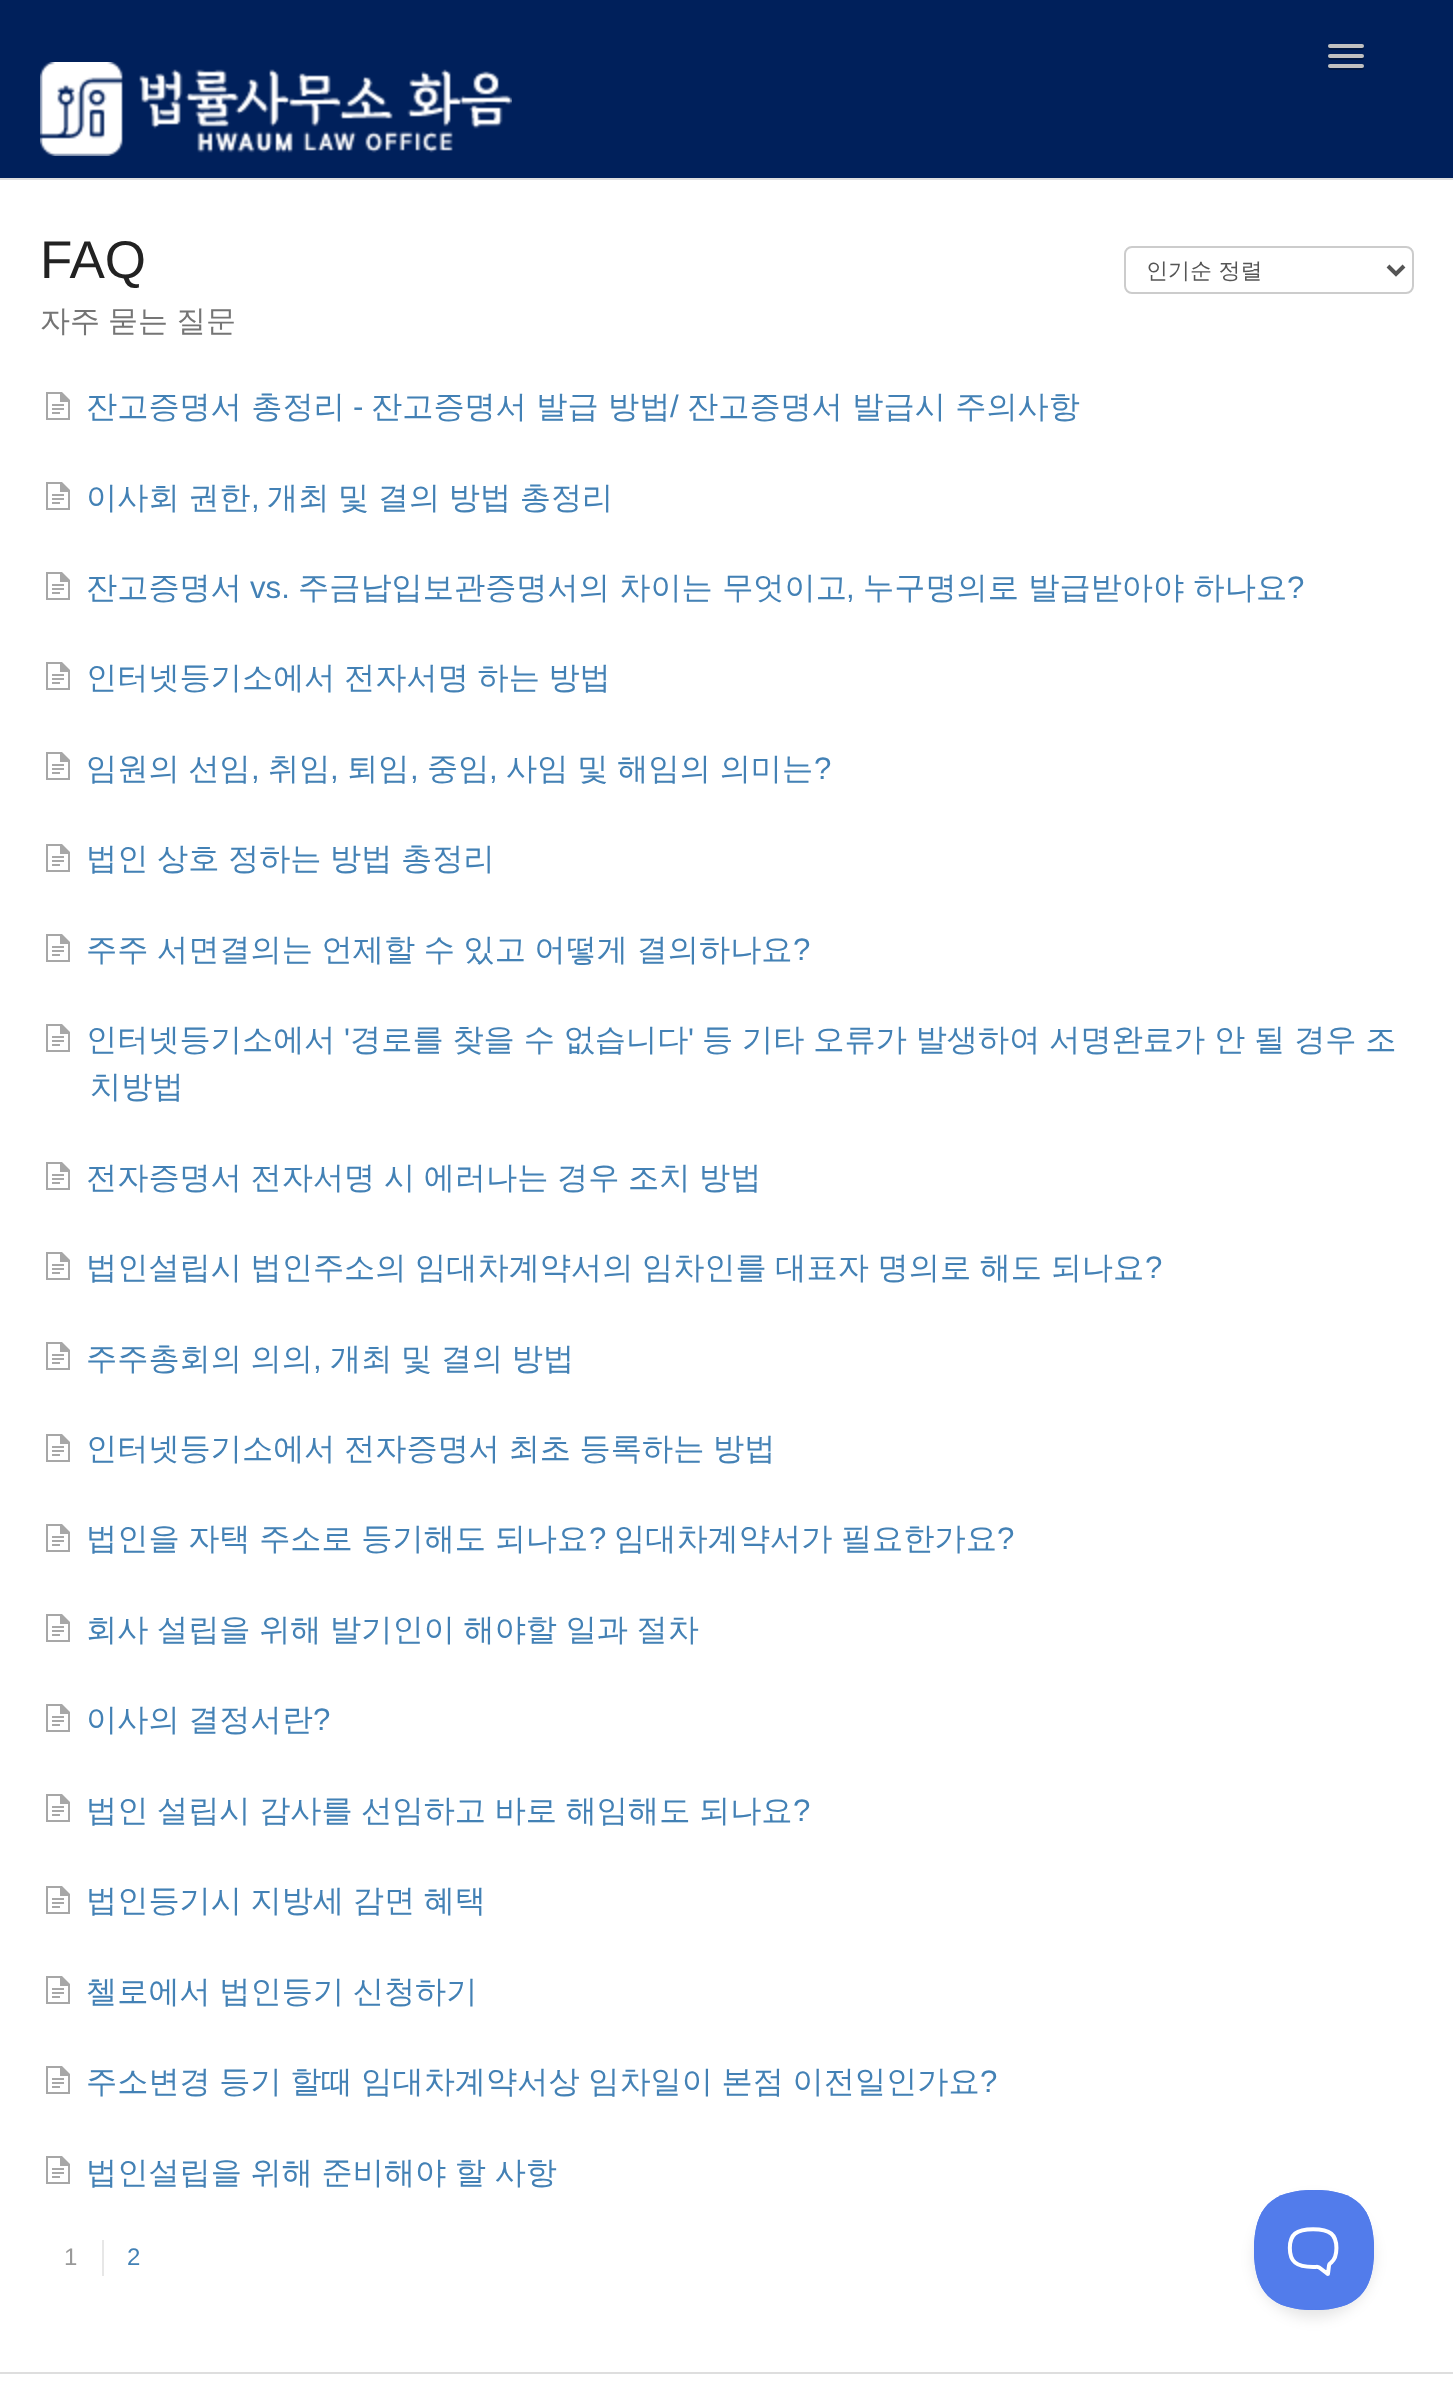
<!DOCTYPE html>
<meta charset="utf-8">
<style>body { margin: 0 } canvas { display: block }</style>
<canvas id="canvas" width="1453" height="2390"></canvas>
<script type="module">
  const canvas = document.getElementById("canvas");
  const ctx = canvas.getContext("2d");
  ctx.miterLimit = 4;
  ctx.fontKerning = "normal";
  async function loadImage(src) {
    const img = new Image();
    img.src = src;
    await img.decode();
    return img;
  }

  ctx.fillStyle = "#ffffff";
  ctx.fillRect(0, 0, 1453, 2390);
  ctx.fillStyle = "#00205b";
  ctx.fillRect(0, 0, 1453, 178);
  ctx.fillStyle = "#001844";
  ctx.beginPath();
  ctx.moveTo(1328.5, 47);
  ctx.bezierCurveTo(1326, 51, 1335, 50, 1335.5, 50);
  ctx.lineTo(1356.5, 50);
  ctx.bezierCurveTo(1357, 50, 1366, 51, 1363.5, 47);
  ctx.bezierCurveTo(1363.5, 47.5, 1362.5, 48, 1362, 48);
  ctx.lineTo(1330, 48);
  ctx.bezierCurveTo(1329.5, 48, 1328.5, 47.5, 1328.5, 47);
  ctx.closePath();
  ctx.fill();
  ctx.fillStyle = "#c0c0c0";
  ctx.beginPath();
  ctx.roundRect(1328, 44, 36, 4, 2);
  ctx.fill();
  ctx.fillStyle = "#001844";
  ctx.beginPath();
  ctx.moveTo(1328.5, 57);
  ctx.bezierCurveTo(1326, 61, 1335, 60, 1335.5, 60);
  ctx.lineTo(1356.5, 60);
  ctx.bezierCurveTo(1357, 60, 1366, 61, 1363.5, 57);
  ctx.bezierCurveTo(1363.5, 57.5, 1362.5, 58, 1362, 58);
  ctx.lineTo(1330, 58);
  ctx.bezierCurveTo(1329.5, 58, 1328.5, 57.5, 1328.5, 57);
  ctx.closePath();
  ctx.fill();
  ctx.fillStyle = "#c0c0c0";
  ctx.beginPath();
  ctx.roundRect(1328, 54, 36, 4, 2);
  ctx.fill();
  ctx.fillStyle = "#001844";
  ctx.beginPath();
  ctx.moveTo(1328.5, 67);
  ctx.bezierCurveTo(1326, 71, 1335, 70, 1335.5, 70);
  ctx.lineTo(1356.5, 70);
  ctx.bezierCurveTo(1357, 70, 1366, 71, 1363.5, 67);
  ctx.bezierCurveTo(1363.5, 67.5, 1362.5, 68, 1362, 68);
  ctx.lineTo(1330, 68);
  ctx.bezierCurveTo(1329.5, 68, 1328.5, 67.5, 1328.5, 67);
  ctx.closePath();
  ctx.fill();
  ctx.fillStyle = "#c0c0c0";
  ctx.beginPath();
  ctx.roundRect(1328, 64, 36, 4, 2);
  ctx.fill();
  ctx.drawImage(await loadImage("img1.png"), 40, 62, 472, 94);
  ctx.fillStyle = "#dedede";
  ctx.fillRect(0, 178, 1453, 2);
  ctx.fillRect(0, 2372, 1453, 2);
  ctx.font = "53px Liberation Sans";
  ctx.fillStyle = "#222222";
  ctx.fillText("FAQ", 40, 278);
  ctx.beginPath();
  ctx.roundRect(1125, 247, 288, 46, 7);
  ctx.strokeStyle = "#cccccc";
  ctx.lineWidth = 2;
  ctx.stroke();
  ctx.beginPath();
  ctx.moveTo(1388, 266);
  ctx.lineTo(1396, 274);
  ctx.lineTo(1404, 266);
  ctx.strokeStyle = "#555555";
  ctx.lineWidth = 4;
  ctx.stroke();
  ctx.font = "500 22px WenQuanYi Zen Hei";
  ctx.fillStyle = "#555555";
  ctx.fillText("인기순 정렬", 1146, 278);
  ctx.wordSpacing = "-1px";
  ctx.font = "500 30px WenQuanYi Zen Hei";
  ctx.fillStyle = "#757575";
  ctx.fillText("자주 묻는 질문", 40, 331);
  ctx.drawImage(await loadImage("img2.png"), 46, 392, 24, 28);
  ctx.wordSpacing = "0px";
  ctx.font = "500 31.2px WenQuanYi Zen Hei";
  ctx.fillStyle = "#4381b5";
  ctx.fillText("잔고증명서 총정리", 86, 417);
  ctx.font = "31.2px Liberation Sans";
  ctx.fillText("-", 353, 417);
  ctx.font = "500 31.2px WenQuanYi Zen Hei";
  ctx.fillText("잔고증명서 발급 방법", 371, 417);
  ctx.font = "31.2px Liberation Sans";
  ctx.fillText("/", 670, 417);
  ctx.font = "500 31.2px WenQuanYi Zen Hei";
  ctx.fillText("잔고증명서 발급시 주의사항", 687, 417);
  ctx.drawImage(await loadImage("img2.png"), 46, 482, 24, 28);
  ctx.wordSpacing = "-0.75px";
  ctx.fillText("이사회 권한", 86, 508);
  ctx.wordSpacing = "0px";
  ctx.font = "31.2px Liberation Sans";
  ctx.fillText(",", 251, 508);
  ctx.wordSpacing = "-0.75px";
  ctx.font = "500 31.2px WenQuanYi Zen Hei";
  ctx.fillText("개최 및 결의 방법 총정리", 267, 508);
  ctx.drawImage(await loadImage("img2.png"), 46, 572, 24, 28);
  ctx.wordSpacing = "0px";
  ctx.fillText("잔고증명서", 86, 598);
  ctx.font = "31.2px Liberation Sans";
  ctx.fillText("vs.", 250, 598);
  ctx.font = "500 31.2px WenQuanYi Zen Hei";
  ctx.fillText("주금납입보관증명서의 차이는 무엇이고", 298, 598);
  ctx.font = "31.2px Liberation Sans";
  ctx.fillText(",", 846, 598);
  ctx.font = "500 31.2px WenQuanYi Zen Hei";
  ctx.fillText("누구명의로 발급받아야 하나요", 863, 598);
  ctx.font = "31.2px Liberation Sans";
  ctx.fillText("?", 1287, 598);
  ctx.drawImage(await loadImage("img2.png"), 46, 662, 24, 28);
  ctx.wordSpacing = "-0.75px";
  ctx.font = "500 31.2px WenQuanYi Zen Hei";
  ctx.fillText("인터넷등기소에서 전자서명 하는 방법", 86, 688);
  ctx.drawImage(await loadImage("img2.png"), 46, 752, 24, 28);
  ctx.wordSpacing = "-0.5px";
  ctx.fillText("임원의 선임", 86, 779);
  ctx.wordSpacing = "0px";
  ctx.font = "31.2px Liberation Sans";
  ctx.fillText(",", 251, 779);
  ctx.font = "500 31.2px WenQuanYi Zen Hei";
  ctx.fillText("취임", 268, 779);
  ctx.font = "31.2px Liberation Sans";
  ctx.fillText(",", 330, 779);
  ctx.font = "500 31.2px WenQuanYi Zen Hei";
  ctx.fillText("퇴임", 347, 779);
  ctx.font = "31.2px Liberation Sans";
  ctx.fillText(",", 410, 779);
  ctx.font = "500 31.2px WenQuanYi Zen Hei";
  ctx.fillText("중임", 427, 779);
  ctx.font = "31.2px Liberation Sans";
  ctx.fillText(",", 489, 779);
  ctx.wordSpacing = "-0.5px";
  ctx.font = "500 31.2px WenQuanYi Zen Hei";
  ctx.fillText("사임 및 해임의 의미는", 506, 779);
  ctx.wordSpacing = "0px";
  ctx.font = "31.2px Liberation Sans";
  ctx.fillText("?", 814, 779);
  ctx.drawImage(await loadImage("img2.png"), 46, 844, 24, 28);
  ctx.wordSpacing = "-0.75px";
  ctx.font = "500 31.2px WenQuanYi Zen Hei";
  ctx.fillText("법인 상호 정하는 방법 총정리", 86, 869);
  ctx.drawImage(await loadImage("img2.png"), 46, 934, 24, 28);
  ctx.fillText("주주 서면결의는 언제할 수 있고 어떻게 결의하나요", 86, 960);
  ctx.wordSpacing = "0px";
  ctx.font = "31.2px Liberation Sans";
  ctx.fillText("?", 793, 960);
  ctx.drawImage(await loadImage("img2.png"), 46, 1024, 24, 28);
  ctx.font = "500 31.2px WenQuanYi Zen Hei";
  ctx.fillText("인터넷등기소에서", 86, 1050);
  ctx.font = "31.2px Liberation Sans";
  ctx.fillText("'", 344, 1050);
  ctx.wordSpacing = "-0.5px";
  ctx.font = "500 31.2px WenQuanYi Zen Hei";
  ctx.fillText("경로를 찾을 수 없습니다", 350, 1050);
  ctx.wordSpacing = "0px";
  ctx.font = "31.2px Liberation Sans";
  ctx.fillText("'", 688, 1050);
  ctx.wordSpacing = "-0.5px";
  ctx.font = "500 31.2px WenQuanYi Zen Hei";
  ctx.fillText("등 기타 오류가 발생하여 서명완료가 안 될 경우 조", 702, 1050);
  ctx.wordSpacing = "0px";
  ctx.fillText("치방법", 90, 1097);
  ctx.drawImage(await loadImage("img2.png"), 46, 1162, 24, 28);
  ctx.wordSpacing = "-0.75px";
  ctx.fillText("전자증명서 전자서명 시 에러나는 경우 조치 방법", 86, 1188);
  ctx.drawImage(await loadImage("img2.png"), 46, 1252, 24, 28);
  ctx.fillText("법인설립시 법인주소의 임대차계약서의 임차인를 대표자 명의로 해도 되나요", 86, 1278);
  ctx.wordSpacing = "0px";
  ctx.font = "31.2px Liberation Sans";
  ctx.fillText("?", 1145, 1278);
  ctx.drawImage(await loadImage("img2.png"), 46, 1342, 24, 28);
  ctx.wordSpacing = "-0.75px";
  ctx.font = "500 31.2px WenQuanYi Zen Hei";
  ctx.fillText("주주총회의 의의", 86, 1369);
  ctx.wordSpacing = "0px";
  ctx.font = "31.2px Liberation Sans";
  ctx.fillText(",", 313, 1369);
  ctx.wordSpacing = "-0.75px";
  ctx.font = "500 31.2px WenQuanYi Zen Hei";
  ctx.fillText("개최 및 결의 방법", 330, 1369);
  ctx.drawImage(await loadImage("img2.png"), 46, 1434, 24, 28);
  ctx.fillText("인터넷등기소에서 전자증명서 최초 등록하는 방법", 86, 1459);
  ctx.drawImage(await loadImage("img2.png"), 46, 1524, 24, 28);
  ctx.fillText("법인을 자택 주소로 등기해도 되나요", 86, 1549);
  ctx.wordSpacing = "0px";
  ctx.font = "31.2px Liberation Sans";
  ctx.fillText("?", 589, 1549);
  ctx.wordSpacing = "-0.75px";
  ctx.font = "500 31.2px WenQuanYi Zen Hei";
  ctx.fillText("임대차계약서가 필요한가요", 614, 1549);
  ctx.wordSpacing = "0px";
  ctx.font = "31.2px Liberation Sans";
  ctx.fillText("?", 997, 1549);
  ctx.drawImage(await loadImage("img2.png"), 46, 1614, 24, 28);
  ctx.wordSpacing = "-0.75px";
  ctx.font = "500 31.2px WenQuanYi Zen Hei";
  ctx.fillText("회사 설립을 위해 발기인이 해야할 일과 절차", 86, 1640);
  ctx.drawImage(await loadImage("img2.png"), 46, 1704, 24, 28);
  ctx.fillText("이사의 결정서란", 86, 1730);
  ctx.wordSpacing = "0px";
  ctx.font = "31.2px Liberation Sans";
  ctx.fillText("?", 313, 1730);
  ctx.drawImage(await loadImage("img2.png"), 46, 1794, 24, 28);
  ctx.wordSpacing = "-0.75px";
  ctx.font = "500 31.2px WenQuanYi Zen Hei";
  ctx.fillText("법인 설립시 감사를 선임하고 바로 해임해도 되나요", 86, 1821);
  ctx.wordSpacing = "0px";
  ctx.font = "31.2px Liberation Sans";
  ctx.fillText("?", 793, 1821);
  ctx.drawImage(await loadImage("img2.png"), 46, 1886, 24, 28);
  ctx.wordSpacing = "-0.75px";
  ctx.font = "500 31.2px WenQuanYi Zen Hei";
  ctx.fillText("법인등기시 지방세 감면 혜택", 86, 1911);
  ctx.drawImage(await loadImage("img2.png"), 46, 1976, 24, 28);
  ctx.fillText("첼로에서 법인등기 신청하기", 86, 2002);
  ctx.drawImage(await loadImage("img2.png"), 46, 2066, 24, 28);
  ctx.fillText("주소변경 등기 할때 임대차계약서상 임차일이 본점 이전일인가요", 86, 2092);
  ctx.wordSpacing = "0px";
  ctx.font = "31.2px Liberation Sans";
  ctx.fillText("?", 980, 2092);
  ctx.drawImage(await loadImage("img2.png"), 46, 2156, 24, 28);
  ctx.wordSpacing = "-0.75px";
  ctx.font = "500 31.2px WenQuanYi Zen Hei";
  ctx.fillText("법인설립을 위해 준비해야 할 사항", 86, 2183);
  ctx.wordSpacing = "0px";
  ctx.font = "24px Liberation Sans";
  ctx.fillStyle = "#999999";
  ctx.fillText("1", 64, 2265);
  ctx.fillStyle = "#e7e7e7";
  ctx.fillRect(102, 2240, 2, 36);
  ctx.fillStyle = "#4381b5";
  ctx.fillText("2", 127, 2265);
  ctx.fillStyle = "rgba(0, 0, 0, 0.1)";
  ctx.filter = "blur(7px)";
  ctx.beginPath();
  ctx.roundRect(1254, 2198, 120, 120, 60);
  ctx.fill();
  ctx.filter = "none";
  ctx.drawImage(await loadImage("img3.png"), 1254, 2190, 120, 120);
</script>
